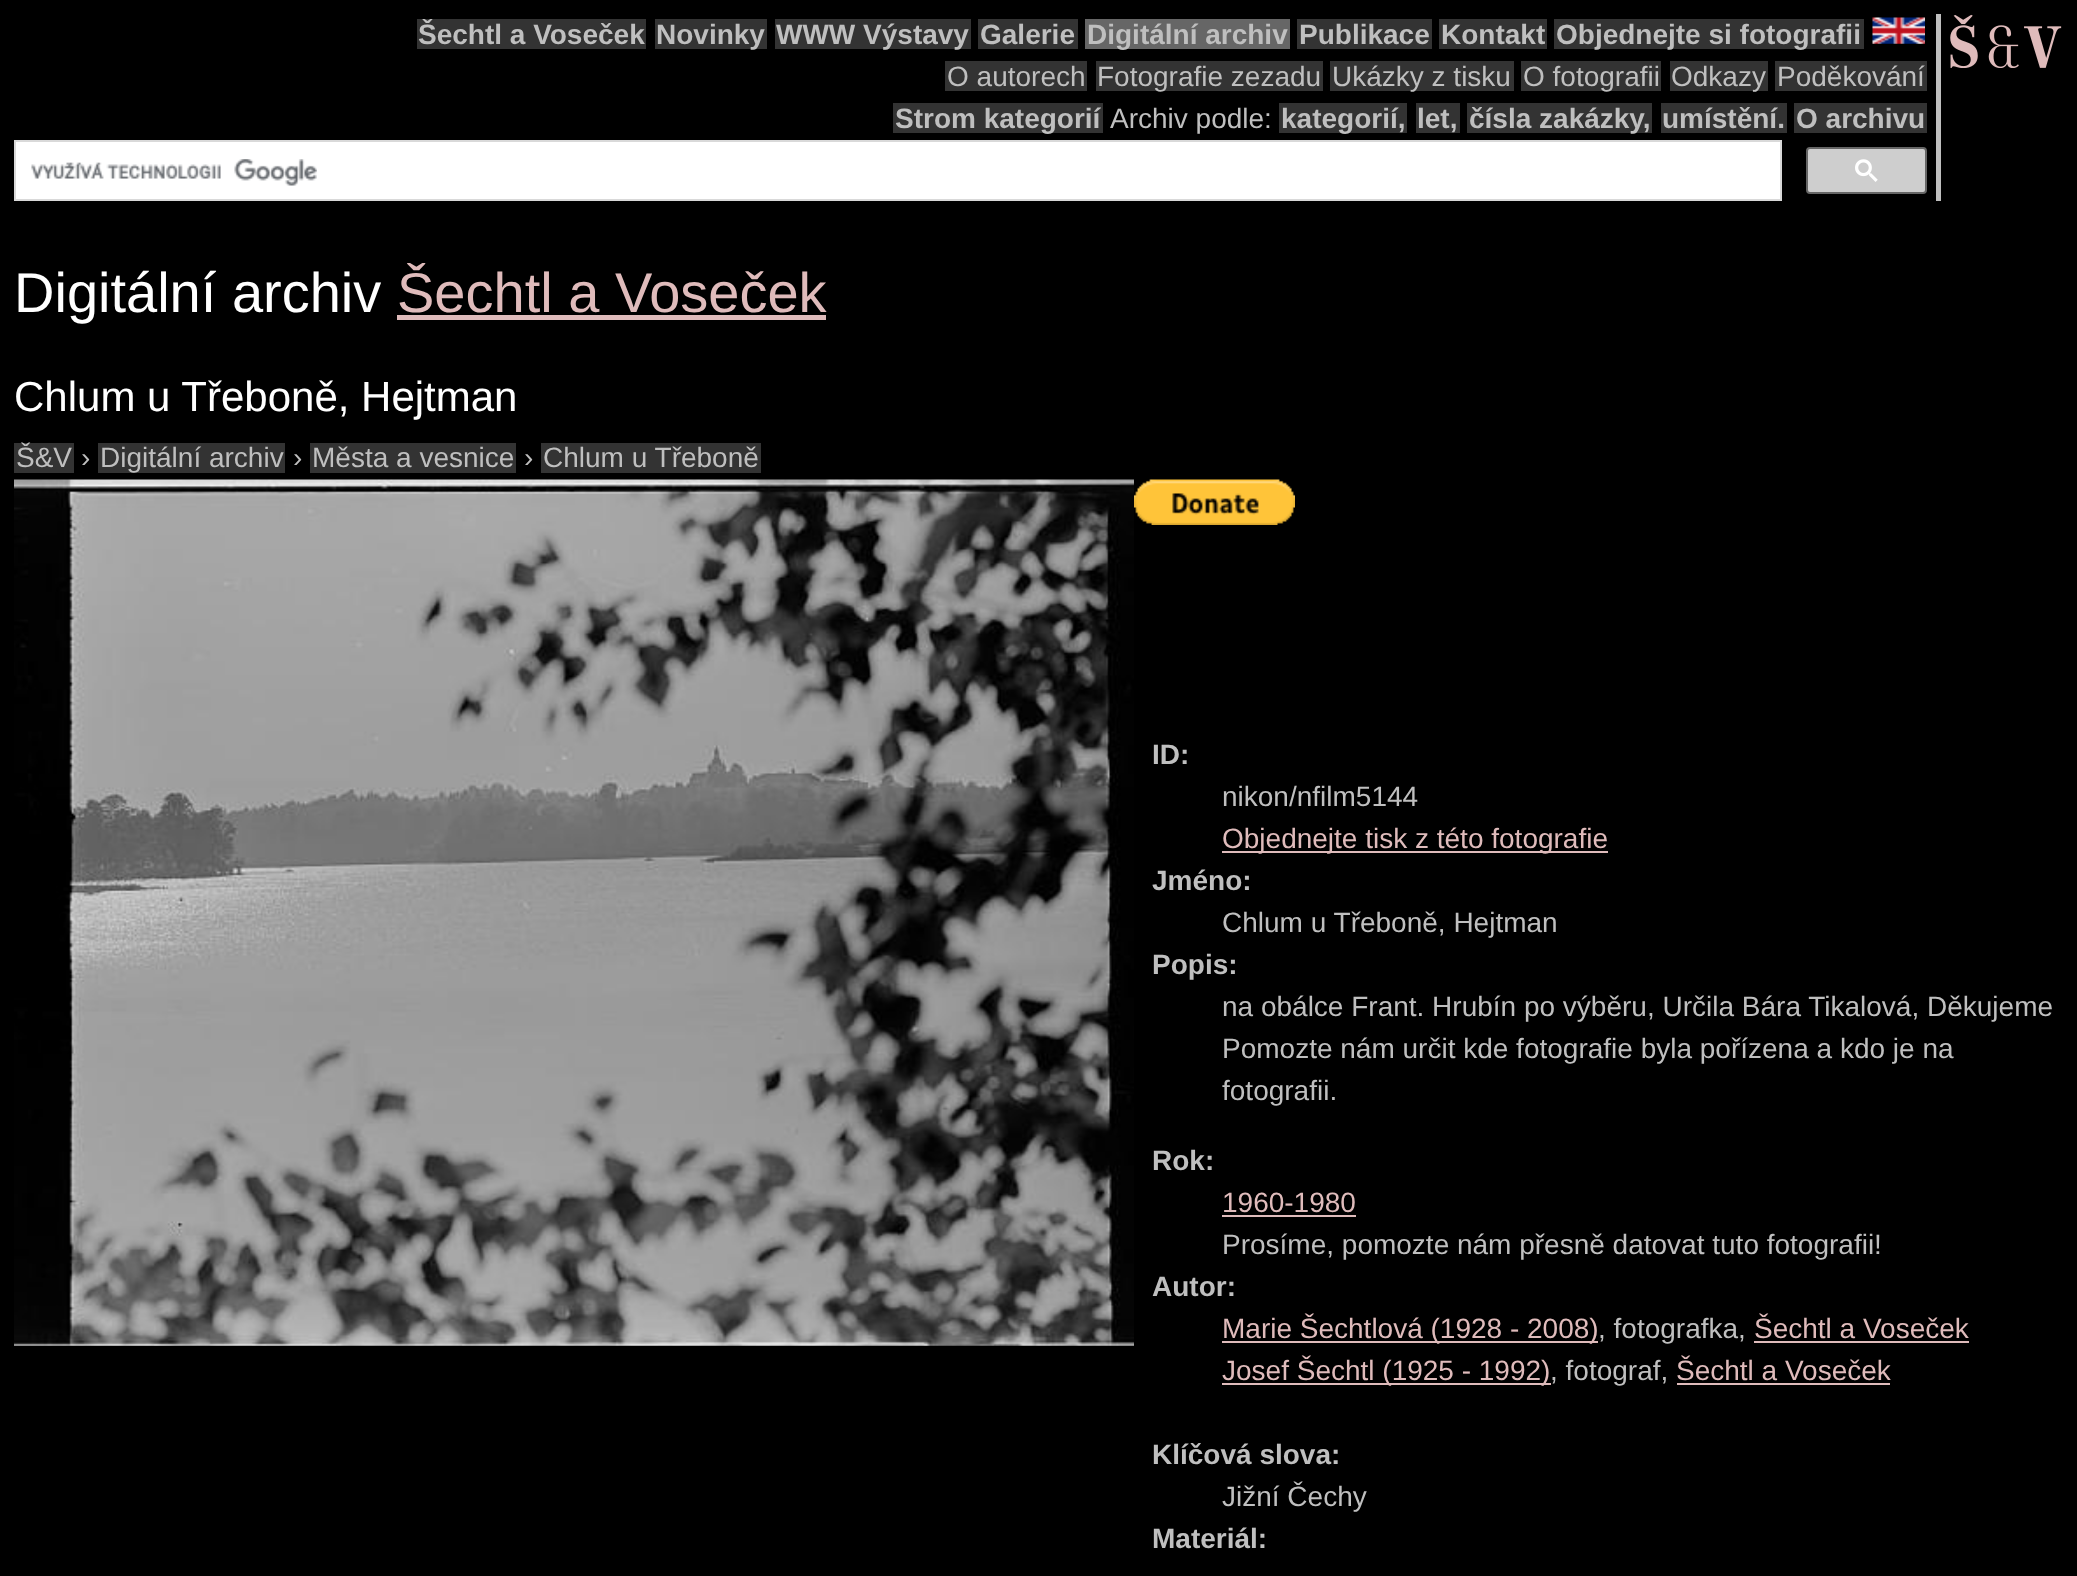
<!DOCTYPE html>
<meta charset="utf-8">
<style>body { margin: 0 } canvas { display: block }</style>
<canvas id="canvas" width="2077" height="1576"></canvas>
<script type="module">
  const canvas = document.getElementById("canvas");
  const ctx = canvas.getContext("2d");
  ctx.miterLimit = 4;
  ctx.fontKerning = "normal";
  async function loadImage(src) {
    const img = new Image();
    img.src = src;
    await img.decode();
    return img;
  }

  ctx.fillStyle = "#000000";
  ctx.fillRect(0, 0, 2077, 1576);
  ctx.fillStyle = "#bfbfbf";
  ctx.fillRect(1936, 14, 5, 187);
  ctx.fillStyle = "#333333";
  ctx.fillRect(417, 19, 229, 30);
  ctx.font = "bold 28px Liberation Sans";
  ctx.fillStyle = "#bfbfbf";
  ctx.fillText("Šechtl a Voseček", 418, 44);
  ctx.fillStyle = "#333333";
  ctx.fillRect(655, 19, 112, 30);
  ctx.fillStyle = "#bfbfbf";
  ctx.fillText("Novinky", 656, 44);
  ctx.fillStyle = "#333333";
  ctx.fillRect(775, 19, 196, 30);
  ctx.fillStyle = "#bfbfbf";
  ctx.fillText("WWW Výstavy", 776, 44);
  ctx.fillStyle = "#333333";
  ctx.fillRect(978, 19, 100, 30);
  ctx.fillStyle = "#bfbfbf";
  ctx.fillText("Galerie", 980, 44);
  ctx.fillStyle = "#666666";
  ctx.fillRect(1085, 19, 205, 30);
  ctx.fillStyle = "#bfbfbf";
  ctx.fillText("Digitální archiv", 1087, 44);
  ctx.fillStyle = "#333333";
  ctx.fillRect(1297, 19, 135, 30);
  ctx.fillStyle = "#bfbfbf";
  ctx.fillText("Publikace", 1299, 44);
  ctx.fillStyle = "#333333";
  ctx.fillRect(1439, 19, 108, 30);
  ctx.fillStyle = "#bfbfbf";
  ctx.fillText("Kontakt", 1441, 44);
  ctx.fillStyle = "#333333";
  ctx.fillRect(1554, 19, 310, 30);
  ctx.fillStyle = "#bfbfbf";
  ctx.fillText("Objednejte si fotografii", 1556, 44);
  ctx.drawImage(await loadImage("img1.png"), 1872, 17, 53, 27);
  ctx.fillStyle = "#333333";
  ctx.fillRect(945, 61, 142, 30);
  ctx.font = "28px Liberation Sans";
  ctx.fillStyle = "#bfbfbf";
  ctx.fillText("O autorech", 947, 86);
  ctx.fillStyle = "#333333";
  ctx.fillRect(1096, 61, 227, 30);
  ctx.fillStyle = "#bfbfbf";
  ctx.fillText("Fotografie zezadu", 1097, 86);
  ctx.fillStyle = "#333333";
  ctx.fillRect(1330, 61, 184, 30);
  ctx.fillStyle = "#bfbfbf";
  ctx.fillText("Ukázky z tisku", 1332, 86);
  ctx.fillStyle = "#333333";
  ctx.fillRect(1521, 61, 140, 30);
  ctx.fillStyle = "#bfbfbf";
  ctx.fillText("O fotografii", 1523, 86);
  ctx.fillStyle = "#333333";
  ctx.fillRect(1670, 61, 98, 30);
  ctx.fillStyle = "#bfbfbf";
  ctx.fillText("Odkazy", 1671, 86);
  ctx.fillStyle = "#333333";
  ctx.fillRect(1775, 61, 152, 30);
  ctx.fillStyle = "#bfbfbf";
  ctx.fillText("Poděkování", 1777, 86);
  ctx.fillStyle = "#333333";
  ctx.fillRect(893, 103, 210, 30);
  ctx.font = "bold 28px Liberation Sans";
  ctx.fillStyle = "#bfbfbf";
  ctx.fillText("Strom kategorií", 895, 128);
  ctx.font = "28px Liberation Sans";
  ctx.fillText("Archiv podle:", 1110, 128);
  ctx.fillStyle = "#333333";
  ctx.fillRect(1279, 103, 128, 30);
  ctx.font = "bold 28px Liberation Sans";
  ctx.fillStyle = "#bfbfbf";
  ctx.fillText("kategorií,", 1281, 128);
  ctx.fillStyle = "#333333";
  ctx.fillRect(1416, 103, 44, 30);
  ctx.fillStyle = "#bfbfbf";
  ctx.fillText("let,", 1417, 128);
  ctx.fillStyle = "#333333";
  ctx.fillRect(1467, 103, 185, 30);
  ctx.fillStyle = "#bfbfbf";
  ctx.fillText("čísla zakázky,", 1469, 128);
  ctx.fillStyle = "#333333";
  ctx.fillRect(1661, 103, 126, 30);
  ctx.fillStyle = "#bfbfbf";
  ctx.fillText("umístění.", 1662, 128);
  ctx.fillStyle = "#333333";
  ctx.fillRect(1794, 103, 133, 30);
  ctx.fillStyle = "#bfbfbf";
  ctx.fillText("O archivu", 1796, 128);
  ctx.fillStyle = "#ffffff";
  ctx.beginPath();
  ctx.rect(15, 141, 1766, 59);
  ctx.fill();
  ctx.strokeStyle = "#d9d9d9";
  ctx.lineWidth = 2;
  ctx.stroke();
  ctx.drawImage(await loadImage("img2.png"), 31, 159, 286, 27);
  ctx.fillStyle = "#cecece";
  ctx.beginPath();
  ctx.roundRect(1807, 148, 119, 45, 3);
  ctx.fill();
  ctx.strokeStyle = "#666666";
  ctx.stroke();
  ctx.drawImage(await loadImage("img3.png"), 1855, 159, 23, 23);
  ctx.drawImage(await loadImage("img4.png"), 1950, 14, 112, 54);
  ctx.font = "56px Liberation Sans";
  ctx.fillStyle = "#ffffff";
  ctx.fillText("Digitální archiv", 14, 312);
  ctx.fillStyle = "#dfbbbb";
  ctx.fillText("Šechtl a Voseček", 397, 312);
  ctx.fillRect(397, 315, 429, 5);
  ctx.font = "42px Liberation Sans";
  ctx.fillStyle = "#ffffff";
  ctx.fillText("Chlum u Třeboně, Hejtman", 14, 411);
  ctx.fillStyle = "#333333";
  ctx.fillRect(14, 443, 60, 30);
  ctx.font = "28px Liberation Sans";
  ctx.fillStyle = "#bfbfbf";
  ctx.fillText("Š&V", 16, 467);
  ctx.fillText("›", 81, 467);
  ctx.fillStyle = "#333333";
  ctx.fillRect(98, 443, 187, 30);
  ctx.fillStyle = "#bfbfbf";
  ctx.fillText("Digitální archiv", 100, 467);
  ctx.fillText("›", 293, 467);
  ctx.fillStyle = "#333333";
  ctx.fillRect(310, 443, 206, 30);
  ctx.fillStyle = "#bfbfbf";
  ctx.fillText("Města a vesnice", 312, 467);
  ctx.fillText("›", 524, 467);
  ctx.fillStyle = "#333333";
  ctx.fillRect(541, 443, 220, 30);
  ctx.fillStyle = "#bfbfbf";
  ctx.fillText("Chlum u Třeboně", 543, 467);
  ctx.drawImage(await loadImage("img5.png"), 14, 479, 1120, 867);
  ctx.drawImage(await loadImage("img6.png"), 1134, 479, 161, 46);
  ctx.font = "bold 28px Liberation Sans";
  ctx.fillText("ID:", 1152, 764);
  ctx.font = "28px Liberation Sans";
  ctx.fillText("nikon/nfilm5144", 1222, 806);
  ctx.fillStyle = "#dfbbbb";
  ctx.fillRect(1222, 851, 386, 2);
  ctx.fillText("Objednejte tisk z této fotografie", 1222, 848);
  ctx.font = "bold 28px Liberation Sans";
  ctx.fillStyle = "#bfbfbf";
  ctx.fillText("Jméno:", 1152, 890);
  ctx.font = "28px Liberation Sans";
  ctx.fillText("Chlum u Třeboně, Hejtman", 1222, 932);
  ctx.font = "bold 28px Liberation Sans";
  ctx.fillText("Popis:", 1152, 974);
  ctx.font = "28px Liberation Sans";
  ctx.fillText("na obálce Frant. Hrubín po výběru, Určila Bára Tikalová, Děkujeme", 1222, 1016);
  ctx.fillText("Pomozte nám určit kde fotografie byla pořízena a kdo je na", 1222, 1058);
  ctx.fillText("fotografii.", 1222, 1100);
  ctx.font = "bold 28px Liberation Sans";
  ctx.fillText("Rok:", 1152, 1170);
  ctx.font = "28px Liberation Sans";
  ctx.fillStyle = "#dfbbbb";
  ctx.fillText("1960-1980", 1222, 1212);
  ctx.fillRect(1222, 1215, 134, 2);
  ctx.fillStyle = "#bfbfbf";
  ctx.fillText("Prosíme, pomozte nám přesně datovat tuto fotografii!", 1222, 1254);
  ctx.font = "bold 28px Liberation Sans";
  ctx.fillText("Autor:", 1152, 1296);
  ctx.fillStyle = "#dfbbbb";
  ctx.fillRect(1222, 1341, 376, 2);
  ctx.font = "28px Liberation Sans";
  ctx.fillText("Marie Šechtlová (1928 - 2008)", 1222, 1338);
  ctx.fillStyle = "#bfbfbf";
  ctx.fillText(", fotografka,", 1598, 1338);
  ctx.fillStyle = "#dfbbbb";
  ctx.fillText("Šechtl a Voseček", 1754, 1338);
  ctx.fillRect(1754, 1341, 215, 2);
  ctx.fillRect(1222, 1383, 329, 2);
  ctx.fillText("Josef Šechtl (1925 - 1992)", 1222, 1380);
  ctx.fillStyle = "#bfbfbf";
  ctx.fillText(", fotograf,", 1550, 1380);
  ctx.fillStyle = "#dfbbbb";
  ctx.fillText("Šechtl a Voseček", 1676, 1380);
  ctx.fillRect(1677, 1383, 213, 2);
  ctx.font = "bold 28px Liberation Sans";
  ctx.fillStyle = "#bfbfbf";
  ctx.fillText("Klíčová slova:", 1152, 1464);
  ctx.font = "28px Liberation Sans";
  ctx.fillText("Jižní Čechy", 1222, 1506);
  ctx.font = "bold 28px Liberation Sans";
  ctx.fillText("Materiál:", 1152, 1548);
</script>
